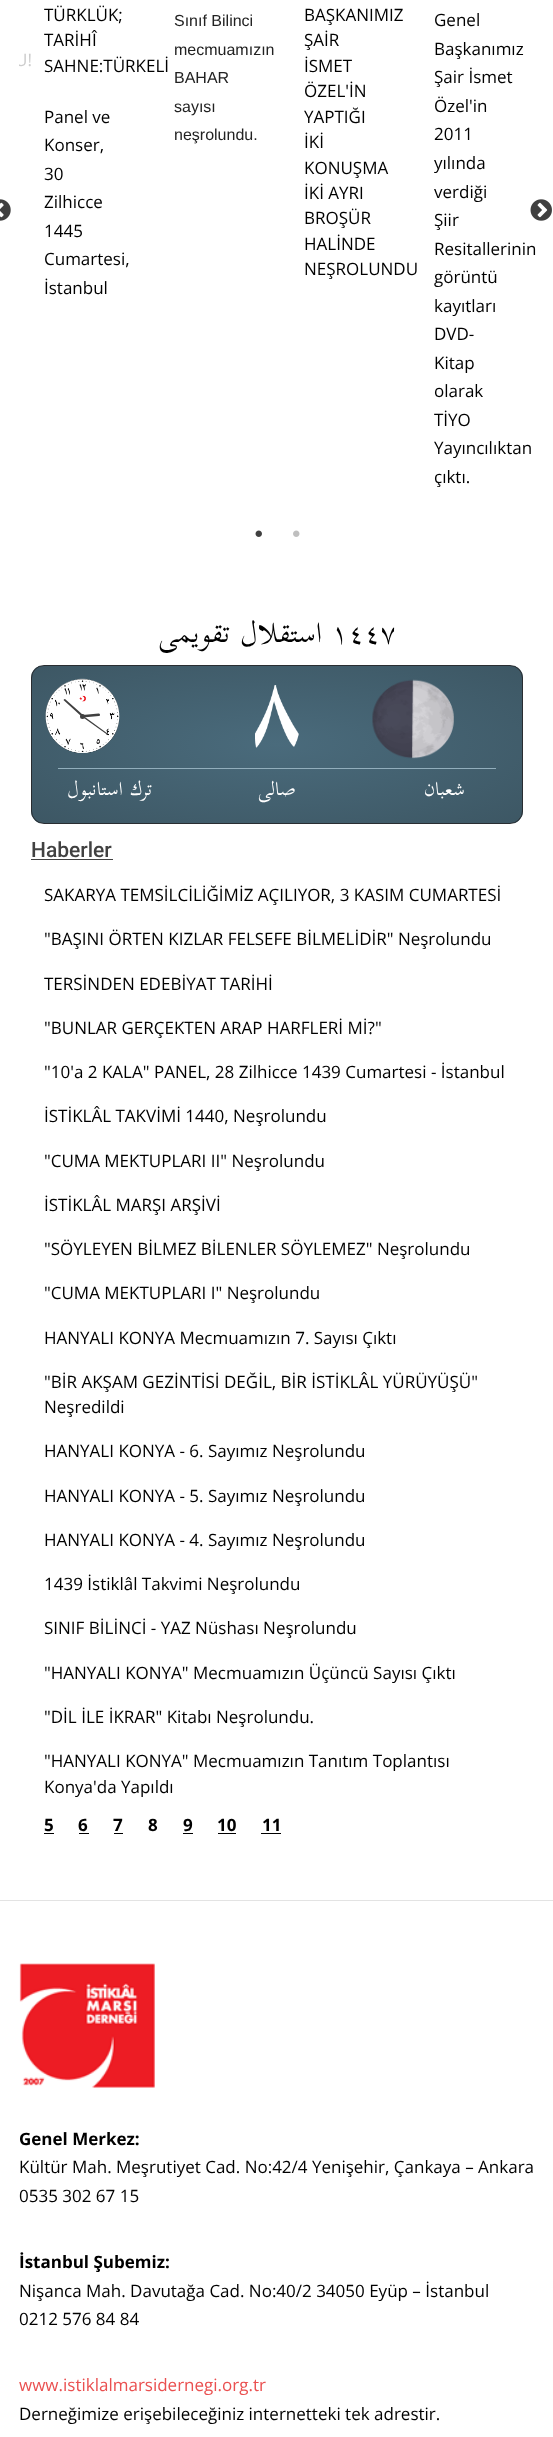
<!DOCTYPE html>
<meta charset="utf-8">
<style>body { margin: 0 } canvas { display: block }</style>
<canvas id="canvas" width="553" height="2437"></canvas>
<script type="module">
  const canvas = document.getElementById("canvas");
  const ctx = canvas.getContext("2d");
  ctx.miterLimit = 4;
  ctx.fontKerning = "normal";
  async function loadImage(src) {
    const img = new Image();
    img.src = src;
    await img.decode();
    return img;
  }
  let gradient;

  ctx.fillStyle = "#ffffff";
  ctx.fillRect(0, 0, 553, 2437);
  ctx.drawImage(await loadImage("img1.png"), 0, 199, 11, 22);
  ctx.save();
  ctx.beginPath();
  ctx.rect(19, 0, 516, 515);
  ctx.clip();
  ctx.font = "17px Open Sans";
  ctx.fillStyle = "#cccccc";
  ctx.fillText("U!", 15, 66);
  ctx.restore();
  ctx.font = "17px Open Sans";
  ctx.fillStyle = "#000000";
  ctx.fillText("TÜRKLÜK;", 44, 21);
  ctx.fillText("TARİHÎ", 44, 46);
  ctx.fillText("SAHNE:TÜRKELİ", 44, 72);
  ctx.fillText("Panel ve", 44, 123);
  ctx.fillText("Konser,", 44, 151);
  ctx.fillText("30", 44, 180);
  ctx.fillText("Zilhicce", 44, 208);
  ctx.fillText("1445", 44, 237);
  ctx.fillText("Cumartesi,", 44, 265);
  ctx.fillText("İstanbul", 44, 294);
  ctx.font = "16px Liberation Sans";
  ctx.fillStyle = "#222222";
  ctx.fillText("Sınıf Bilinci", 174, 26);
  ctx.fillText("mecmuamızın", 174, 55);
  ctx.fillText("BAHAR", 174, 83);
  ctx.fillText("sayısı", 174, 112);
  ctx.fillText("neşrolundu.", 174, 140);
  ctx.font = "17px Open Sans";
  ctx.fillStyle = "#000000";
  ctx.fillText("BAŞKANIMIZ", 304, 21);
  ctx.fillText("ŞAİR", 304, 46);
  ctx.fillText("İSMET", 304, 72);
  ctx.fillText("ÖZEL'İN", 304, 97);
  ctx.fillText("YAPTIĞI", 304, 123);
  ctx.fillText("İKİ", 304, 148);
  ctx.fillText("KONUŞMA", 304, 174);
  ctx.fillText("İKİ AYRI", 304, 199);
  ctx.fillText("BROŞÜR", 304, 224);
  ctx.fillText("HALİNDE", 304, 250);
  ctx.fillText("NEŞROLUNDU", 304, 275);
  ctx.fillText("Genel", 434, 26);
  ctx.fillText("Başkanımız", 434, 55);
  ctx.fillText("Şair İsmet", 434, 83);
  ctx.fillText("Özel'in", 434, 112);
  ctx.fillText("2011", 434, 140);
  ctx.fillText("yılında", 434, 169);
  ctx.fillText("verdiği", 434, 198);
  ctx.fillText("Şiir", 434, 226);
  ctx.fillText("Resitallerinin", 434, 255);
  ctx.fillText("görüntü", 434, 283);
  ctx.fillText("kayıtları", 434, 312);
  ctx.fillText("DVD-", 434, 340);
  ctx.fillText("Kitap", 434, 369);
  ctx.fillText("olarak", 434, 397);
  ctx.fillText("TİYO", 434, 426);
  ctx.fillText("Yayıncılıktan", 434, 454);
  ctx.fillText("çıktı.", 434, 483);
  ctx.drawImage(await loadImage("img2.png"), 530, 199, 22, 22);
  ctx.drawImage(await loadImage("img3.png"), 255, 530, 7, 7);
  ctx.drawImage(await loadImage("img4.png"), 293, 530, 7, 7);
  ctx.direction = "rtl";
  ctx.font = "41px 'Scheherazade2'";
  ctx.fillText("استقلال تقویمی", 322, 642);
  ctx.direction = "ltr";
  ctx.fillText("١٤٤٧", 332, 642);
  ctx.save();
  ctx.beginPath();
  ctx.roundRect(31, 665, 492, 159, 13);
  ctx.clip();
  gradient = ctx.createRadialGradient(-212, 2340.22, 0, -212, 2340.22, 346);
  gradient.addColorStop(0, "#4a6b7c");
  gradient.addColorStop(1, "#3d5764");
  ctx.fillStyle = gradient;
  ctx.beginPath();
  ctx.rect(31, 666, 2, 157);
  ctx.save();
  ctx.clip();
  ctx.scale(1, 110 / 346);
  ctx.fillRect(0, 0, 553, 7666);
  ctx.restore();
  gradient = ctx.createRadialGradient(277, 2340.22, 0, 277, 2340.22, 346);
  gradient.addColorStop(0, "#4a6b7c");
  gradient.addColorStop(1, "#3d5764");
  ctx.fillStyle = gradient;
  ctx.beginPath();
  ctx.rect(33, 666, 488, 157);
  ctx.save();
  ctx.clip();
  ctx.scale(1, 110 / 346);
  ctx.fillRect(0, 0, 553, 7666);
  ctx.restore();
  gradient = ctx.createRadialGradient(766, 2340.22, 0, 766, 2340.22, 346);
  gradient.addColorStop(0, "#4a6b7c");
  gradient.addColorStop(1, "#3d5764");
  ctx.fillStyle = gradient;
  ctx.beginPath();
  ctx.rect(521, 666, 2, 157);
  ctx.save();
  ctx.clip();
  ctx.scale(1, 110 / 346);
  ctx.fillRect(0, 0, 553, 7666);
  ctx.restore();
  ctx.restore();
  ctx.beginPath();
  ctx.roundRect(31.5, 665.5, 491, 158, 12.5);
  ctx.strokeStyle = "#292d31";
  ctx.stroke();
  ctx.drawImage(await loadImage("img5.png"), 45, 678, 75, 75);
  ctx.fillStyle = "#404040";
  ctx.beginPath();
  ctx.moveTo(100, 715);
  ctx.bezierCurveTo(100, 715.5, 99.5, 716, 99, 716);
  ctx.lineTo(82.5, 717.5);
  ctx.bezierCurveTo(82, 717.5, 81.5, 717, 81.5, 716);
  ctx.bezierCurveTo(81, 715.5, 81.5, 715, 82.5, 715);
  ctx.lineTo(98.5, 713.5);
  ctx.bezierCurveTo(99.5, 713.5, 100, 714, 100, 715);
  ctx.closePath();
  ctx.fill();
  ctx.beginPath();
  ctx.moveTo(64, 699.5);
  ctx.bezierCurveTo(64.5, 699, 65, 699, 65, 699);
  ctx.lineTo(82.5, 714.5);
  ctx.bezierCurveTo(83, 715, 83, 715.5, 82.5, 716);
  ctx.bezierCurveTo(82, 716.5, 81.5, 716.5, 81, 716);
  ctx.lineTo(64, 700.5);
  ctx.bezierCurveTo(63.5, 700.5, 63.5, 699.5, 64, 699.5);
  ctx.closePath();
  ctx.fill();
  ctx.beginPath();
  ctx.moveTo(108, 734.5);
  ctx.bezierCurveTo(107.5, 734.5, 107, 734.5, 107, 734.5);
  ctx.lineTo(82.5, 717);
  ctx.bezierCurveTo(82.5, 716.5, 82.5, 716.5, 82.5, 716);
  ctx.bezierCurveTo(82.5, 715.5, 83, 715.5, 83.5, 716);
  ctx.lineTo(107.5, 733.5);
  ctx.bezierCurveTo(108, 733.5, 108, 734, 108, 734.5);
  ctx.closePath();
  ctx.fill();
  ctx.beginPath();
  ctx.arc(82.5, 716.5, 2.5, 0, Math.PI * 2);
  ctx.fill();
  ctx.drawImage(await loadImage("img6.png"), 255, 685, 44, 63);
  ctx.drawImage(await loadImage("img7.png"), 372, 679, 82, 80);
  ctx.fillStyle = "#92aebc";
  ctx.fillRect(58, 768, 438, 1);
  ctx.direction = "rtl";
  ctx.font = "27.5px 'Scheherazade2'";
  ctx.fillStyle = "#ffffff";
  ctx.fillText("ترك استانبول", 152, 795);
  ctx.fillText("صالی", 296, 795);
  ctx.fillText("شعبان", 465, 795);
  ctx.direction = "ltr";
  ctx.font = "500 21px Roboto";
  ctx.fillStyle = "#414141";
  ctx.fillText("Haberler", 31, 857);
  ctx.fillRect(31, 859, 82, 1);
  ctx.font = "17px Open Sans";
  ctx.fillStyle = "#000000";
  ctx.fillText("SAKARYA TEMSİLCİLİĞİMİZ AÇILIYOR, 3 KASIM CUMARTESİ", 44, 901);
  ctx.fillText("\"BAŞINI ÖRTEN KIZLAR FELSEFE BİLMELİDİR\" Neşrolundu", 44, 945);
  ctx.fillText("TERSİNDEN EDEBİYAT TARİHİ", 44, 990);
  ctx.fillText("\"BUNLAR GERÇEKTEN ARAP HARFLERİ Mİ?\"", 44, 1034);
  ctx.fillText("\"10'a 2 KALA\" PANEL, 28 Zilhicce 1439 Cumartesi - İstanbul", 44, 1078);
  ctx.fillText("İSTİKLÂL TAKVİMİ 1440, Neşrolundu", 44, 1122);
  ctx.fillText("\"CUMA MEKTUPLARI II\" Neşrolundu", 44, 1167);
  ctx.fillText("İSTİKLÂL MARŞI ARŞİVİ", 44, 1211);
  ctx.fillText("\"SÖYLEYEN BİLMEZ BİLENLER SÖYLEMEZ\" Neşrolundu", 44, 1255);
  ctx.fillText("\"CUMA MEKTUPLARI I\" Neşrolundu", 44, 1299);
  ctx.fillText("HANYALI KONYA Mecmuamızın 7. Sayısı Çıktı", 44, 1344);
  ctx.fillText("\"BİR AKŞAM GEZİNTİSİ DEĞİL, BİR İSTİKLÂL YÜRÜYÜŞÜ\"", 44, 1388);
  ctx.fillText("Neşredildi", 44, 1413);
  ctx.fillText("HANYALI KONYA - 6. Sayımız Neşrolundu", 44, 1457);
  ctx.fillText("HANYALI KONYA - 5. Sayımız Neşrolundu", 44, 1502);
  ctx.fillText("HANYALI KONYA - 4. Sayımız Neşrolundu", 44, 1546);
  ctx.fillText("1439 İstiklâl Takvimi Neşrolundu", 44, 1590);
  ctx.fillText("SINIF BİLİNCİ - YAZ Nüshası Neşrolundu", 44, 1634);
  ctx.fillText("\"HANYALI KONYA\" Mecmuamızın Üçüncü Sayısı Çıktı", 44, 1679);
  ctx.fillText("\"DİL İLE İKRAR\" Kitabı Neşrolundu.", 44, 1723);
  ctx.fillText("\"HANYALI KONYA\" Mecmuamızın Tanıtım Toplantısı", 44, 1767);
  ctx.fillText("Konya'da Yapıldı", 44, 1793);
  ctx.font = "bold 17px Open Sans";
  ctx.fillText("5", 44, 1831);
  ctx.fillRect(44, 1833, 10, 1);
  ctx.fillText("6", 78, 1831);
  ctx.fillRect(79, 1833, 10, 1);
  ctx.fillText("7", 113, 1831);
  ctx.fillRect(114, 1833, 9, 1);
  ctx.fillText("8", 148, 1831);
  ctx.fillText("9", 183, 1831);
  ctx.fillRect(183, 1833, 10, 1);
  ctx.fillText("10", 217, 1831);
  ctx.fillRect(218, 1833, 18, 1);
  ctx.fillText("11", 262, 1831);
  ctx.fillRect(261, 1833, 20, 1);
  ctx.fillStyle = "#e3e3e3";
  ctx.fillRect(0, 1900, 553, 1);
  ctx.drawImage(await loadImage("img8.png"), 19, 1963, 136, 125);
  ctx.fillStyle = "#000000";
  ctx.fillText("Genel Merkez:", 19, 2145);
  ctx.font = "17px Open Sans";
  ctx.fillText("Kültür Mah. Meşrutiyet Cad. No:42/4 Yenişehir, Çankaya – Ankara", 19, 2173);
  ctx.fillText("0535 302 67 15", 19, 2202);
  ctx.font = "bold 17px Open Sans";
  ctx.fillText("İstanbul Şubemiz:", 19, 2268);
  ctx.font = "17px Open Sans";
  ctx.fillText("Nişanca Mah. Davutağa Cad. No:40/2 34050 Eyüp – İstanbul", 19, 2297);
  ctx.fillText("0212 576 84 84", 19, 2325);
  ctx.fillStyle = "#ea5050";
  ctx.fillText("www.istiklalmarsidernegi.org.tr", 19, 2391);
  ctx.fillStyle = "#000000";
  ctx.fillText("Derneğimize erişebileceğiniz internetteki tek adrestir.", 19, 2420);
</script>
